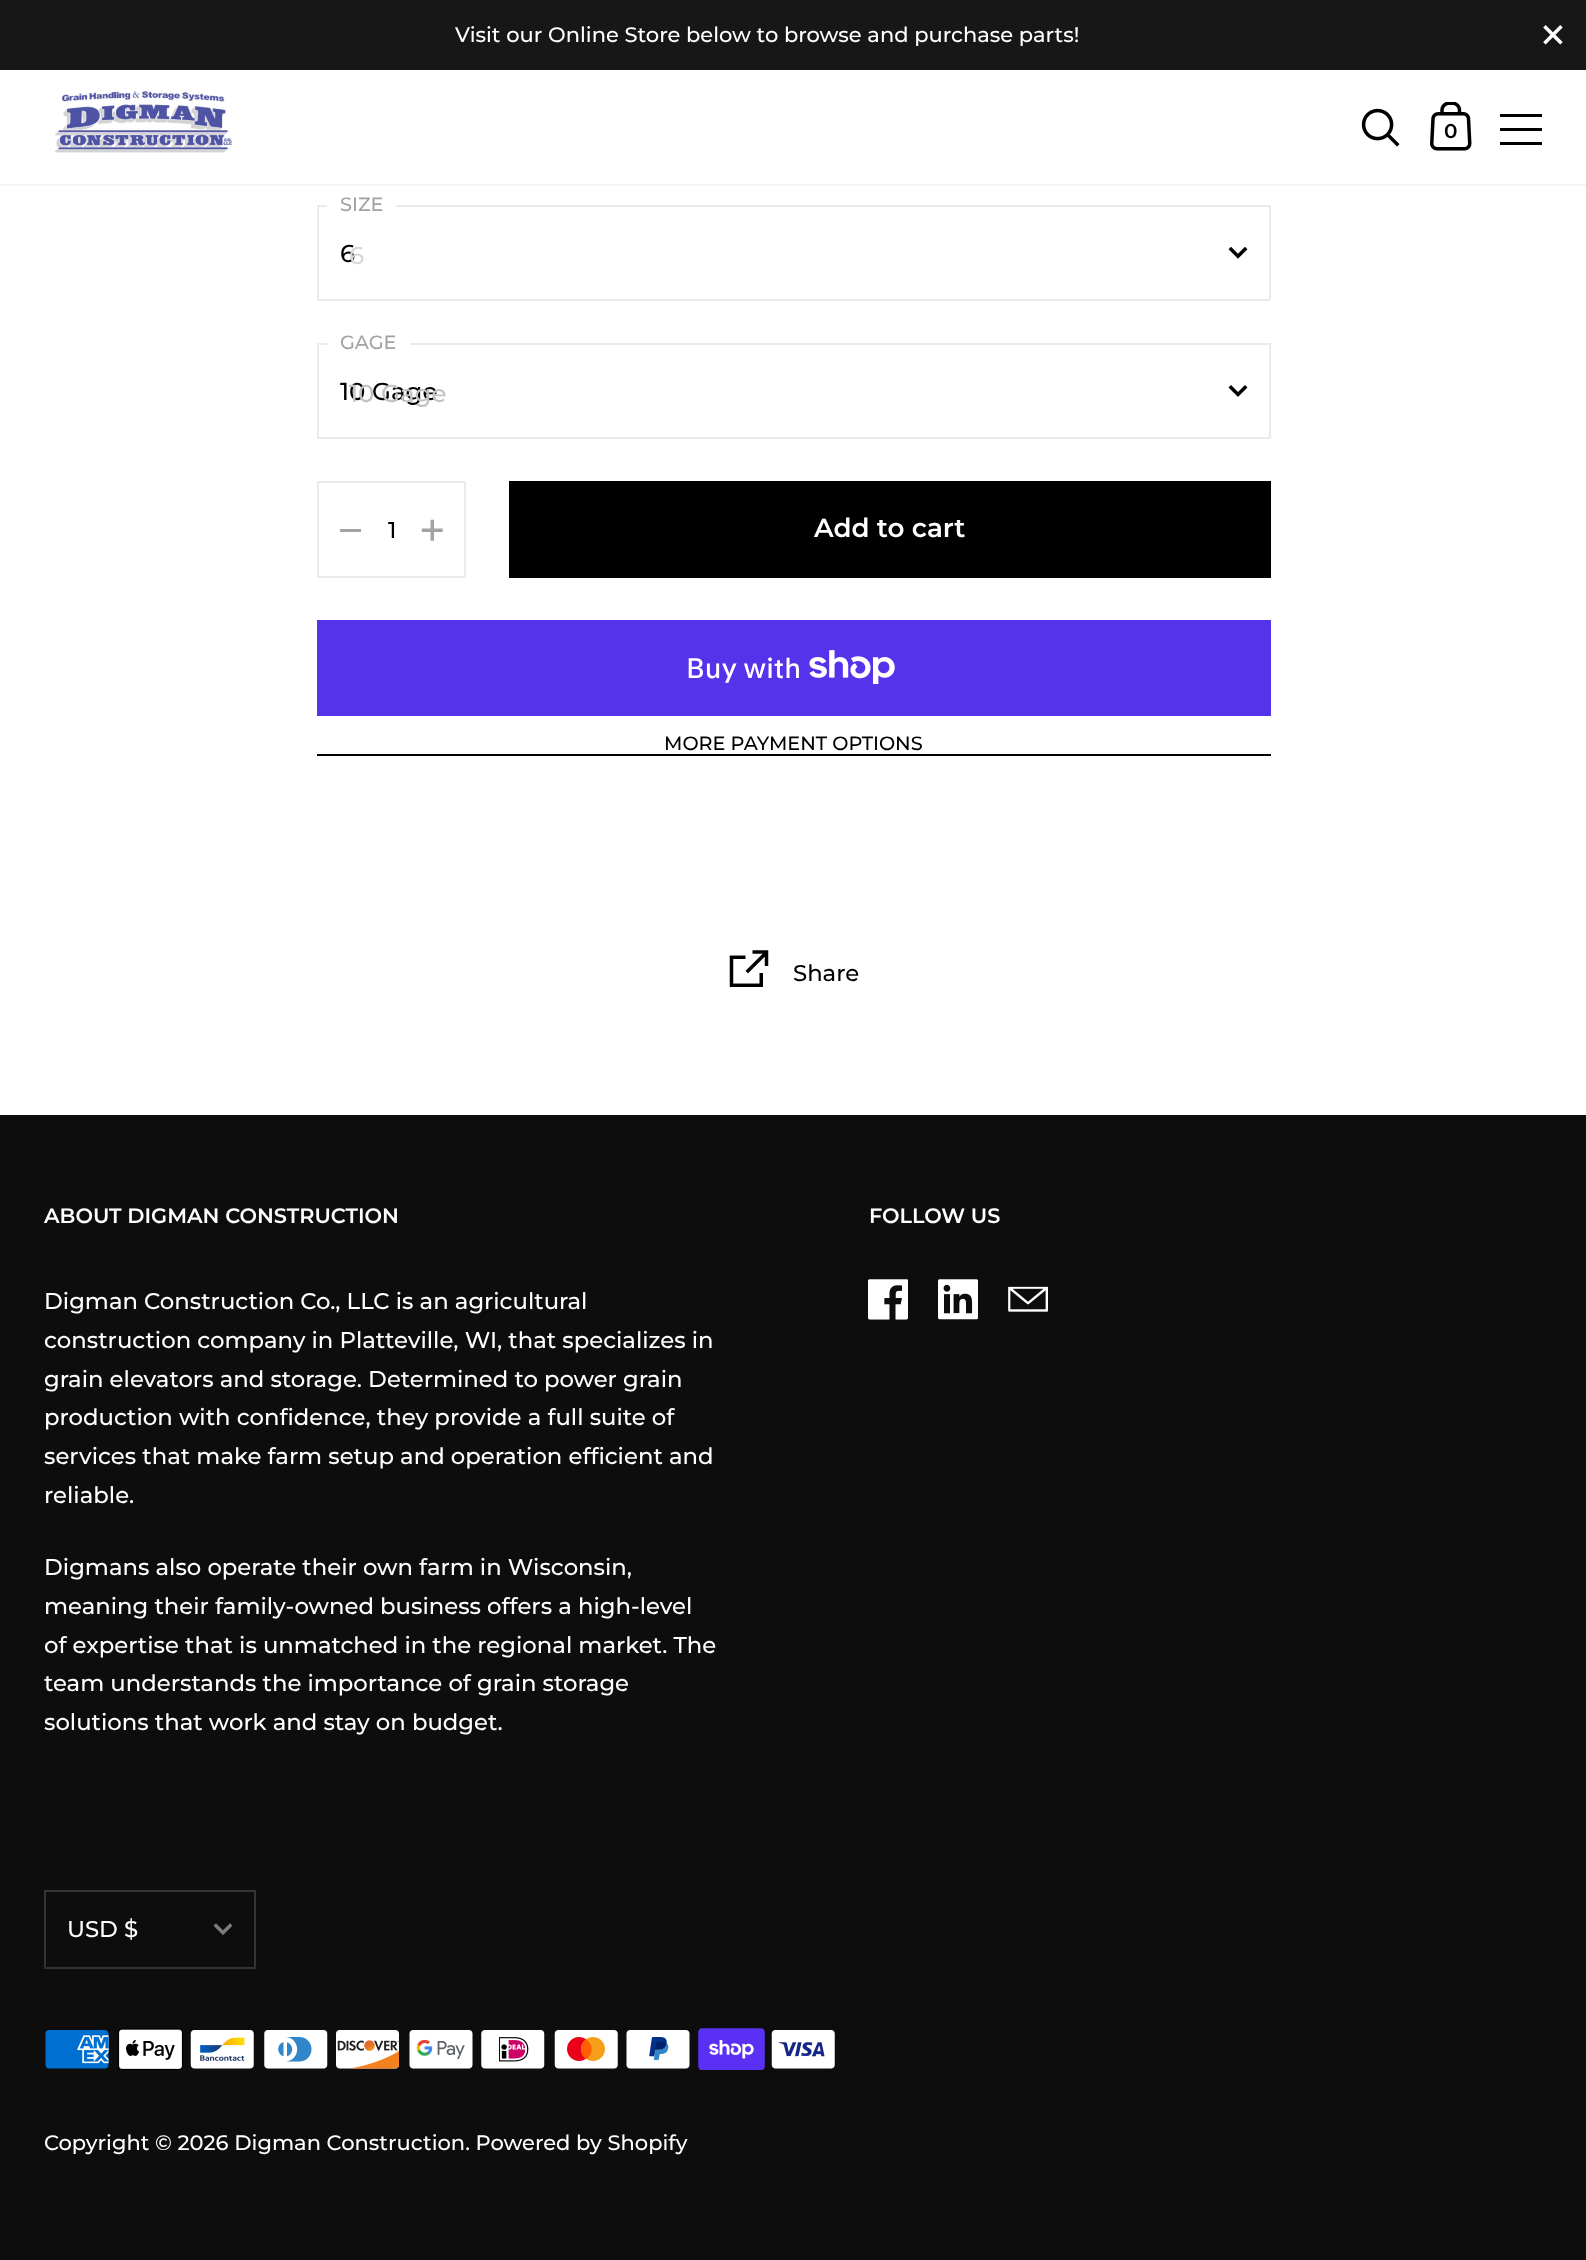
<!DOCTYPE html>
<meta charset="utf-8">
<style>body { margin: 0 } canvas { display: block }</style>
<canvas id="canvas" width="1586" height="2260"></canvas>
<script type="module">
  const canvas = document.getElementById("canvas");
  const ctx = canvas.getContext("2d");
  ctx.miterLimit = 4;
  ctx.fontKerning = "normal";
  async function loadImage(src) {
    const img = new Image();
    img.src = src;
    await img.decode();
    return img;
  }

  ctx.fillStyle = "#ffffff";
  ctx.fillRect(0, 0, 1586, 2260);
  ctx.fillStyle = "#171717";
  ctx.fillRect(0, 0, 1586, 70);
  ctx.font = "500 21px Montserrat";
  ctx.fillStyle = "#ffffff";
  ctx.fillText("Visit our Online Store below to browse and purchase parts!", 455, 42);
  ctx.drawImage(await loadImage("img1.png"), 1543, 25, 20, 20);
  ctx.fillStyle = "#f5f5f5";
  ctx.fillRect(0, 184, 1586, 2);
  ctx.drawImage(await loadImage("img2.png"), 55, 91, 177, 62);
  ctx.drawImage(await loadImage("img3.png"), 1361, 108, 39, 39);
  ctx.drawImage(await loadImage("img4.png"), 1430, 102, 42, 49);
  ctx.font = "600 20px Montserrat";
  ctx.fillStyle = "#000000";
  ctx.fillText("0", 1444, 138);
  ctx.fillRect(1500, 114, 42, 3);
  ctx.fillRect(1500, 128, 42, 3);
  ctx.fillRect(1500, 142, 42, 3);
  ctx.strokeStyle = "#ebebeb";
  ctx.lineWidth = 2;
  ctx.strokeRect(318, 206, 952, 94);
  ctx.fillStyle = "#ffffff";
  ctx.fillRect(327, 205, 69, 2);
  ctx.font = "500 19.25px Montserrat";
  ctx.fillStyle = "#a3a3a3";
  ctx.fillText("SIZE", 340, 211);
  ctx.font = "500 24.5px Montserrat";
  ctx.fillStyle = "#000000";
  ctx.fillText("6", 340, 262);
  ctx.fillStyle = "#d7d7d7";
  ctx.fillText("6", 349, 264);
  ctx.drawImage(await loadImage("img5.png"), 1228, 246, 20, 13);
  ctx.fillStyle = "#ffffff";
  ctx.fillRect(317, 299, 954, 2);
  ctx.fillStyle = "#ebebeb";
  ctx.beginPath();
  ctx.moveTo(1270.5, 299);
  ctx.lineTo(1270.5, 301);
  ctx.lineTo(1269, 299);
  ctx.closePath();
  ctx.fill();
  ctx.beginPath();
  ctx.moveTo(1270, 301);
  ctx.lineTo(317, 301);
  ctx.lineTo(318, 299);
  ctx.lineTo(1269, 299);
  ctx.closePath();
  ctx.fill();
  ctx.fillStyle = "#e6e6e6";
  ctx.beginPath();
  ctx.moveTo(317, 301);
  ctx.lineTo(317, 299);
  ctx.lineTo(318.5, 299);
  ctx.closePath();
  ctx.fill();
  ctx.strokeRect(318, 344, 952, 94);
  ctx.fillStyle = "#ffffff";
  ctx.fillRect(327, 343, 83, 2);
  ctx.font = "500 19.25px Montserrat";
  ctx.fillStyle = "#a3a3a3";
  ctx.fillText("GAGE", 340, 349);
  ctx.font = "500 24.5px Montserrat";
  ctx.fillStyle = "#000000";
  ctx.fillText("10 Gage", 340, 400);
  ctx.fillStyle = "#c3c3c3";
  ctx.fillText("10 Gage", 349, 402);
  ctx.drawImage(await loadImage("img6.png"), 1228, 385, 20, 12);
  ctx.fillStyle = "#ffffff";
  ctx.fillRect(317, 438, 954, 1);
  ctx.fillStyle = "rgba(0, 0, 0, 0.08)";
  ctx.beginPath();
  ctx.moveTo(1270.5, 437.5);
  ctx.lineTo(1270.5, 439);
  ctx.lineTo(1269, 437.5);
  ctx.closePath();
  ctx.fill();
  ctx.beginPath();
  ctx.moveTo(1270, 439);
  ctx.lineTo(317, 439);
  ctx.lineTo(318, 438);
  ctx.lineTo(1269, 438);
  ctx.closePath();
  ctx.fill();
  ctx.beginPath();
  ctx.moveTo(317, 439);
  ctx.lineTo(317, 437.5);
  ctx.lineTo(318.5, 437.5);
  ctx.closePath();
  ctx.fill();
  ctx.strokeRect(318, 482, 147, 95);
  ctx.fillStyle = "#a3a3a3";
  ctx.fillRect(340, 529, 21, 3);
  ctx.font = "500 22.75px Montserrat";
  ctx.fillStyle = "#000000";
  ctx.fillText("1", 388, 538);
  ctx.drawImage(await loadImage("img7.png"), 421, 519, 22, 22);
  ctx.fillRect(509, 481, 762, 97);
  ctx.font = "600 26.25px Montserrat";
  ctx.fillStyle = "#ffffff";
  ctx.fillText("Add to cart", 814, 537);
  ctx.fillStyle = "#5433eb";
  ctx.fillRect(317, 620, 954, 96);
  ctx.font = "500 28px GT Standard";
  ctx.fillStyle = "#ffffff";
  ctx.fillText("Buy with", 686, 678);
  ctx.drawImage(await loadImage("img8.png"), 809, 650, 86, 34);
  ctx.fillStyle = "#000000";
  ctx.fillRect(317, 754, 954, 2);
  ctx.font = "500 19.25px Montserrat";
  ctx.fillText("MORE PAYMENT OPTIONS", 664, 750);
  ctx.drawImage(await loadImage("img9.png"), 729, 950, 40, 37);
  ctx.font = "500 22.75px Montserrat";
  ctx.fillText("Share", 793, 981);
  ctx.fillStyle = "#0d0d0d";
  ctx.fillRect(0, 1115, 1586, 1145);
  ctx.font = "600 20.8px Montserrat";
  ctx.fillStyle = "#ffffff";
  ctx.fillText("ABOUT DIGMAN CONSTRUCTION", 44, 1223);
  ctx.font = "500 22.75px Montserrat";
  ctx.fillText("Digman Construction Co., LLC is an agricultural", 44, 1309);
  ctx.fillText("construction company in Platteville, WI, that specializes in", 44, 1348);
  ctx.fillText("grain elevators and storage. Determined to power grain", 44, 1387);
  ctx.fillText("production with confidence, they provide a full suite of", 44, 1425);
  ctx.fillText("services that make farm setup and operation efficient and", 44, 1464);
  ctx.fillText("reliable.", 44, 1503);
  ctx.fillText("Digmans also operate their own farm in Wisconsin,", 44, 1575);
  ctx.fillText("meaning their family-owned business offers a high-level", 44, 1614);
  ctx.fillText("of expertise that is unmatched in the regional market. The", 44, 1653);
  ctx.fillText("team understands the importance of grain storage", 44, 1691);
  ctx.fillText("solutions that work and stay on budget.", 44, 1730);
  ctx.font = "600 20.8px Montserrat";
  ctx.fillText("FOLLOW US", 869, 1223);
  ctx.drawImage(await loadImage("img10.png"), 868, 1279, 40, 41);
  ctx.drawImage(await loadImage("img11.png"), 938, 1279, 40, 41);
  ctx.drawImage(await loadImage("img12.png"), 1008, 1286, 40, 26);
  ctx.strokeStyle = "#343434";
  ctx.strokeRect(45, 1891, 210, 77);
  ctx.font = "500 22.75px Montserrat";
  ctx.fillText("USD $", 67, 1937);
  ctx.drawImage(await loadImage("img13.png"), 213, 1923, 20, 12);
  ctx.fillStyle = "#0d0d0d";
  ctx.fillRect(44, 1967, 212, 2);
  ctx.fillStyle = "#343434";
  ctx.beginPath();
  ctx.moveTo(255.5, 1967);
  ctx.lineTo(255.5, 1969);
  ctx.lineTo(254, 1967);
  ctx.closePath();
  ctx.fill();
  ctx.fillStyle = "rgba(255, 255, 255, 0.16)";
  ctx.beginPath();
  ctx.moveTo(256, 1969);
  ctx.lineTo(44, 1969);
  ctx.lineTo(46, 1967);
  ctx.lineTo(254, 1967);
  ctx.closePath();
  ctx.fill();
  ctx.fillStyle = "#343434";
  ctx.beginPath();
  ctx.moveTo(44, 1969);
  ctx.lineTo(44, 1967);
  ctx.lineTo(45.5, 1967);
  ctx.closePath();
  ctx.fill();
  ctx.drawImage(await loadImage("img14.png"), 45, 2030, 64, 39);
  ctx.drawImage(await loadImage("img15.png"), 118, 2028, 65, 42);
  ctx.drawImage(await loadImage("img16.png"), 190, 2030, 64, 39);
  ctx.drawImage(await loadImage("img17.png"), 264, 2030, 64, 39);
  ctx.drawImage(await loadImage("img18.png"), 336, 2030, 64, 39);
  ctx.drawImage(await loadImage("img19.png"), 409, 2030, 64, 39);
  ctx.drawImage(await loadImage("img20.png"), 481, 2030, 64, 39);
  ctx.drawImage(await loadImage("img21.png"), 554, 2030, 64, 39);
  ctx.drawImage(await loadImage("img22.png"), 626, 2030, 64, 39);
  ctx.drawImage(await loadImage("img23.png"), 698, 2028, 67, 42);
  ctx.drawImage(await loadImage("img24.png"), 771, 2030, 64, 39);
  ctx.font = "500 21px Montserrat";
  ctx.fillStyle = "#ffffff";
  ctx.fillText("Copyright © 2026 Digman Construction. Powered by Shopify", 44, 2150);
</script>
